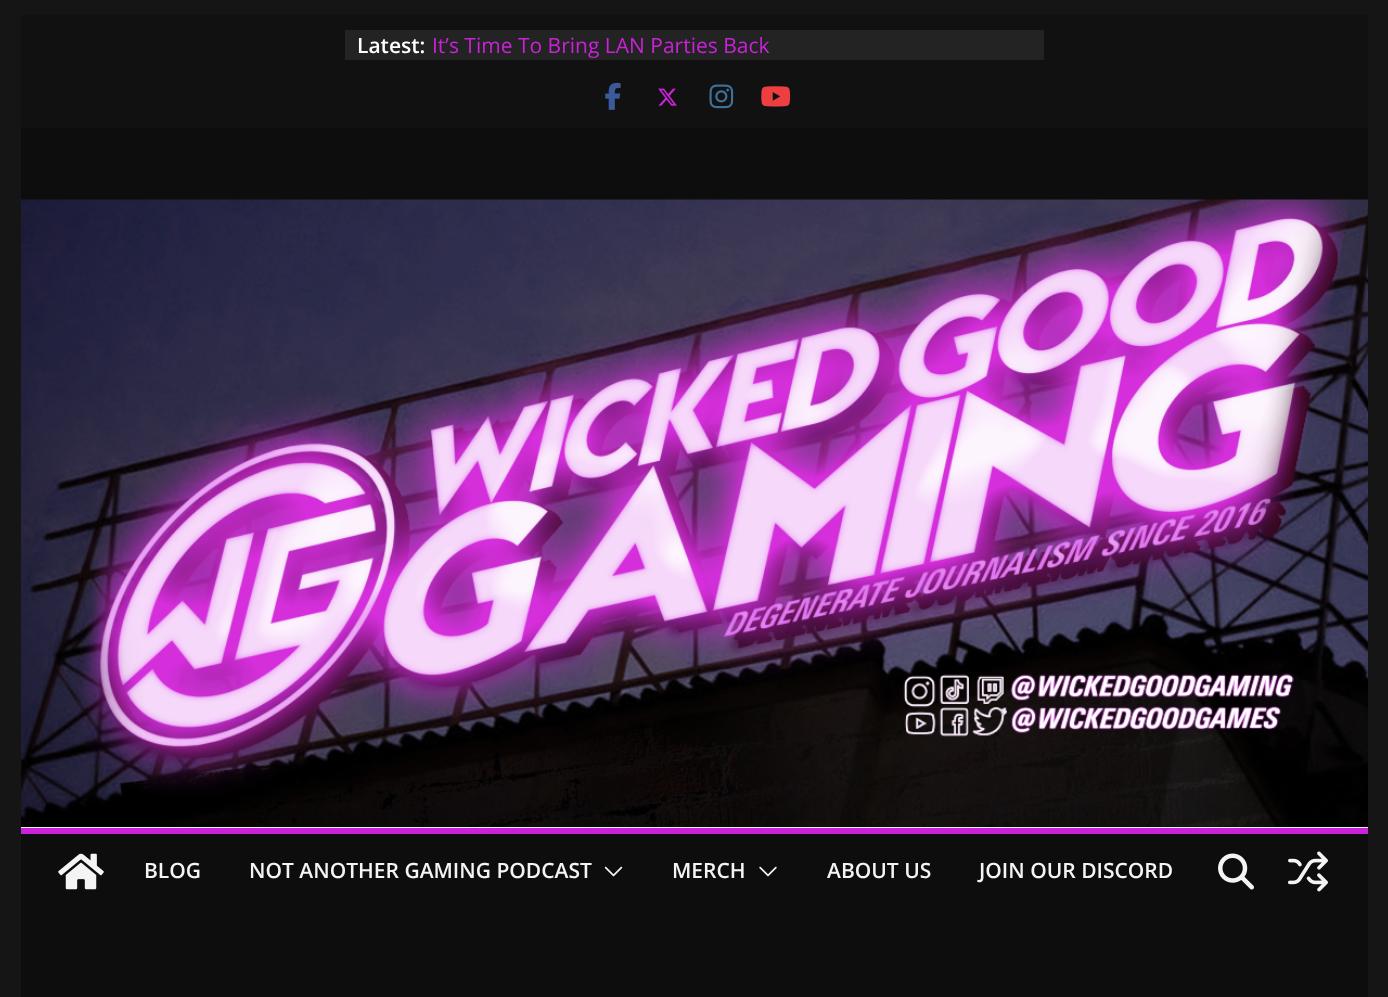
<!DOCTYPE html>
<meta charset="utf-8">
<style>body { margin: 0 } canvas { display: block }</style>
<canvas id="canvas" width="1388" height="997"></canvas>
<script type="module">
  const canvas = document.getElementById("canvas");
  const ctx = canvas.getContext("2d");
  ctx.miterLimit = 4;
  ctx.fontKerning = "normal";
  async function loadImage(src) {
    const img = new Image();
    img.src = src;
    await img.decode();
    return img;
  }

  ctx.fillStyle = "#151515";
  ctx.fillRect(0, 0, 1388, 997);
  ctx.fillStyle = "#0d0d0d";
  ctx.fillRect(21, 128, 1347, 869);
  ctx.fillStyle = "#111111";
  ctx.fillRect(21, 15, 1347, 113);
  ctx.fillStyle = "#232323";
  ctx.fillRect(345, 30, 699, 30);
  ctx.font = "600 21px Open Sans";
  ctx.fillStyle = "#ffffff";
  ctx.fillText("Latest:", 357, 53);
  ctx.font = "21px Open Sans";
  ctx.fillStyle = "#c922d8";
  ctx.fillText("It’s Time To Bring LAN Parties Back", 432, 53);
  ctx.drawImage(await loadImage("img1.png"), 605, 82, 16, 28);
  ctx.drawImage(await loadImage("img2.png"), 658, 88, 19, 18);
  ctx.drawImage(await loadImage("img3.png"), 709, 84, 25, 25);
  ctx.drawImage(await loadImage("img4.png"), 761, 86, 30, 21);
  ctx.drawImage(await loadImage("img5.png"), 21, 199, 1347, 628);
  ctx.fillStyle = "#ebebeb";
  ctx.fillRect(21, 827, 1347, 1);
  ctx.fillStyle = "#c922d8";
  ctx.fillRect(21, 828, 1347, 6);
  ctx.drawImage(await loadImage("img6.png"), 58, 853, 46, 37);
  ctx.font = "600 21px Open Sans";
  ctx.fillStyle = "#f4f4f5";
  ctx.fillText("BLOG", 144, 878);
  ctx.fillText("NOT ANOTHER GAMING PODCAST", 249, 878);
  ctx.drawImage(await loadImage("img7.png"), 604, 866, 19, 11);
  ctx.fillText("MERCH", 672, 878);
  ctx.drawImage(await loadImage("img8.png"), 759, 866, 18, 11);
  ctx.fillText("ABOUT US", 827, 878);
  ctx.fillText("JOIN OUR DISCORD", 979, 878);
  ctx.drawImage(await loadImage("img9.png"), 1218, 853, 36, 37);
  ctx.drawImage(await loadImage("img10.png"), 1287, 851, 41, 41);
</script>
